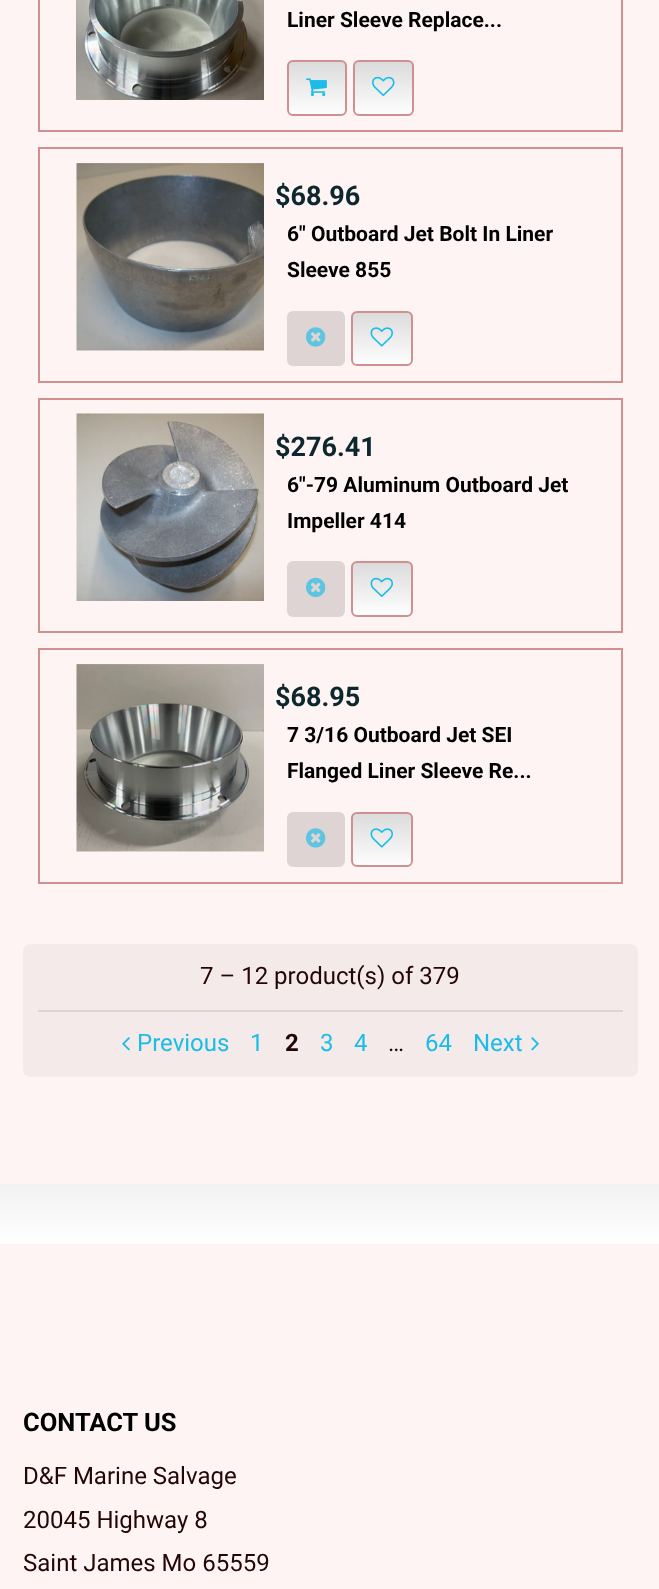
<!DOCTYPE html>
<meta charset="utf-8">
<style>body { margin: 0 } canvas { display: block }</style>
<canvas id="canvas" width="659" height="1589"></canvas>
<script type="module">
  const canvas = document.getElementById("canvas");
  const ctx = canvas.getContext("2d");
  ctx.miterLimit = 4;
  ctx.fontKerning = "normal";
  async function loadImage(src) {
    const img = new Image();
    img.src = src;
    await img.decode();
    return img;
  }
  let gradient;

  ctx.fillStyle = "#fff4f4";
  ctx.fillRect(0, 0, 659, 1589);
  ctx.strokeStyle = "#d28f8f";
  ctx.lineWidth = 2;
  ctx.strokeRect(39, -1, 583, 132);
  ctx.drawImage(await loadImage("img1.png"), 76, 0, 188, 100);
  ctx.font = "bold 21px Roboto";
  ctx.fillStyle = "#000000";
  ctx.fillText("Liner Sleeve Replace...", 287, 27);
  ctx.save();
  ctx.beginPath();
  ctx.roundRect(287, 60, 60, 56, 6);
  ctx.clip();
  gradient = ctx.createLinearGradient(317, 62, 317, 114);
  gradient.addColorStop(0, "#dbdbdb");
  gradient.addColorStop(1, "#fefefe");
  ctx.fillStyle = gradient;
  ctx.fillRect(287, 62, 60, 52);
  ctx.restore();
  ctx.beginPath();
  ctx.roundRect(288, 61, 58, 54, 5);
  ctx.stroke();
  ctx.drawImage(await loadImage("img2.png"), 306, 78, 21, 19);
  ctx.save();
  ctx.beginPath();
  ctx.roundRect(353, 60, 61, 56, 6);
  ctx.clip();
  gradient = ctx.createLinearGradient(383, 62, 383, 114);
  gradient.addColorStop(0, "#dbdbdb");
  gradient.addColorStop(1, "#fefefe");
  ctx.fillStyle = gradient;
  ctx.fillRect(353, 62, 61, 52);
  ctx.restore();
  ctx.beginPath();
  ctx.roundRect(354, 61, 59, 54, 5);
  ctx.stroke();
  ctx.drawImage(await loadImage("img3.png"), 372, 76, 23, 21);
  ctx.strokeRect(39, 148, 583, 234);
  ctx.drawImage(await loadImage("img4.png"), 76, 163, 188, 188);
  ctx.font = "bold 27px Roboto";
  ctx.fillStyle = "#0d272e";
  ctx.fillText("$68.96", 275, 205);
  ctx.font = "bold 21px Roboto";
  ctx.fillStyle = "#000000";
  ctx.fillText("6\" Outboard Jet Bolt In Liner", 287, 241);
  ctx.fillText("Sleeve 855", 287, 277);
  ctx.fillStyle = "#ded4d4";
  ctx.beginPath();
  ctx.roundRect(287, 311, 58, 55, 6);
  ctx.fill();
  ctx.drawImage(await loadImage("img5.png"), 306, 327, 20, 20);
  ctx.save();
  ctx.beginPath();
  ctx.roundRect(351, 311, 62, 55, 6);
  ctx.clip();
  gradient = ctx.createLinearGradient(382, 312, 382, 365);
  gradient.addColorStop(0, "#dbdbdb");
  gradient.addColorStop(1, "#fefefe");
  ctx.fillStyle = gradient;
  ctx.fillRect(351, 312, 62, 53);
  ctx.restore();
  ctx.beginPath();
  ctx.roundRect(352, 312, 60, 53, 5);
  ctx.stroke();
  ctx.drawImage(await loadImage("img6.png"), 370, 327, 23, 20);
  ctx.strokeRect(39, 399, 583, 233);
  ctx.drawImage(await loadImage("img7.png"), 76, 413, 188, 188);
  ctx.font = "bold 27px Roboto";
  ctx.fillStyle = "#0d272e";
  ctx.fillText("$276.41", 275, 456);
  ctx.font = "bold 21px Roboto";
  ctx.fillStyle = "#000000";
  ctx.fillText("6\"-79 Aluminum Outboard Jet", 287, 492);
  ctx.fillText("Impeller 414", 287, 528);
  ctx.fillStyle = "#ded4d4";
  ctx.beginPath();
  ctx.roundRect(287, 561, 58, 56, 6);
  ctx.fill();
  ctx.drawImage(await loadImage("img8.png"), 306, 577, 20, 21);
  ctx.save();
  ctx.beginPath();
  ctx.roundRect(351, 561, 62, 56, 6);
  ctx.clip();
  gradient = ctx.createLinearGradient(382, 563, 382, 615);
  gradient.addColorStop(0, "#dbdbdb");
  gradient.addColorStop(1, "#fefefe");
  ctx.fillStyle = gradient;
  ctx.fillRect(351, 563, 62, 52);
  ctx.restore();
  ctx.beginPath();
  ctx.roundRect(352, 562, 60, 54, 5);
  ctx.stroke();
  ctx.drawImage(await loadImage("img9.png"), 370, 577, 23, 21);
  ctx.strokeRect(39, 649, 583, 234);
  ctx.drawImage(await loadImage("img10.png"), 76, 664, 188, 188);
  ctx.font = "bold 27px Roboto";
  ctx.fillStyle = "#0d272e";
  ctx.fillText("$68.95", 275, 706);
  ctx.font = "bold 21px Roboto";
  ctx.fillStyle = "#000000";
  ctx.fillText("7 3/16 Outboard Jet SEI", 287, 742);
  ctx.fillText("Flanged Liner Sleeve Re...", 287, 778);
  ctx.fillStyle = "#ded4d4";
  ctx.beginPath();
  ctx.roundRect(287, 812, 58, 55, 6);
  ctx.fill();
  ctx.drawImage(await loadImage("img5.png"), 306, 828, 20, 20);
  ctx.save();
  ctx.beginPath();
  ctx.roundRect(351, 812, 62, 55, 6);
  ctx.clip();
  gradient = ctx.createLinearGradient(382, 813, 382, 866);
  gradient.addColorStop(0, "#dbdbdb");
  gradient.addColorStop(1, "#fefefe");
  ctx.fillStyle = gradient;
  ctx.fillRect(351, 813, 62, 53);
  ctx.restore();
  ctx.beginPath();
  ctx.roundRect(352, 813, 60, 53, 5);
  ctx.stroke();
  ctx.drawImage(await loadImage("img6.png"), 370, 828, 23, 20);
  ctx.fillStyle = "#f5eaea";
  ctx.beginPath();
  ctx.roundRect(23, 944, 615, 133, 8);
  ctx.fill();
  ctx.font = "24px Roboto";
  ctx.fillStyle = "#230606";
  ctx.fillText("7 – 12 product(s) of 379", 200, 984);
  ctx.fillStyle = "#ddd3d3";
  ctx.fillRect(38, 1010, 585, 2);
  ctx.drawImage(await loadImage("img11.png"), 122, 1037, 8, 14);
  ctx.fillStyle = "#19bde8";
  ctx.fillText("Previous", 137, 1051);
  ctx.fillText("1", 250, 1051);
  ctx.font = "bold 24px Roboto";
  ctx.fillStyle = "#230606";
  ctx.fillText("2", 285, 1051);
  ctx.font = "24px Roboto";
  ctx.fillStyle = "#19bde8";
  ctx.fillText("3", 320, 1051);
  ctx.fillText("4", 354, 1051);
  ctx.fillStyle = "#230606";
  ctx.fillText("…", 388, 1051);
  ctx.fillStyle = "#19bde8";
  ctx.fillText("64", 425, 1051);
  ctx.fillText("Next", 473, 1051);
  ctx.drawImage(await loadImage("img12.png"), 531, 1037, 8, 14);
  gradient = ctx.createLinearGradient(0, 1184, 0, 1244);
  gradient.addColorStop(0, "#f2f2f2");
  gradient.addColorStop(1, "#ffffff");
  ctx.fillStyle = gradient;
  ctx.fillRect(0, 1184, 659, 60);
  ctx.font = "bold 25.5px Roboto";
  ctx.fillStyle = "#000000";
  ctx.fillText("CONTACT US", 23, 1431);
  ctx.font = "24px Roboto";
  ctx.fillStyle = "#230606";
  ctx.fillText("D&F Marine Salvage", 23, 1484);
  ctx.fillText("20045 Highway 8", 23, 1528);
  ctx.fillText("Saint James Mo 65559", 23, 1571);
</script>
